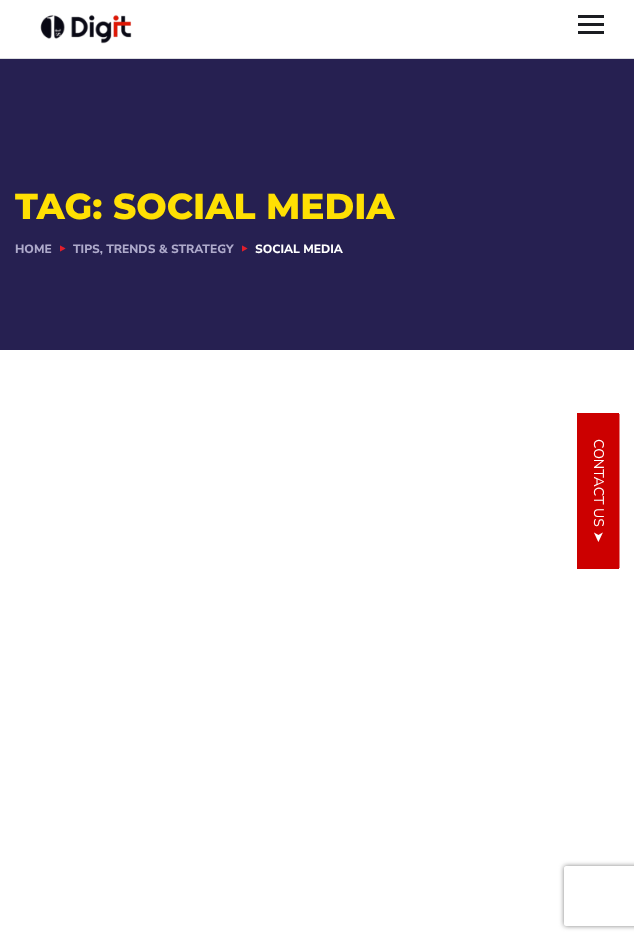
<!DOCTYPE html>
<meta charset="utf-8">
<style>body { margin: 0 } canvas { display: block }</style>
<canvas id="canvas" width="634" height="940"></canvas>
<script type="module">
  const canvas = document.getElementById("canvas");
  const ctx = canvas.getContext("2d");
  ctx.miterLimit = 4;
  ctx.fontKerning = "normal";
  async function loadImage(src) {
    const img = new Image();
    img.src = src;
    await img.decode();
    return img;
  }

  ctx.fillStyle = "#ffffff";
  ctx.fillRect(0, 0, 634, 940);
  ctx.fillStyle = "#dcdde1";
  ctx.fillRect(0, 58, 634, 1);
  ctx.drawImage(await loadImage("img1.png"), 40, 14, 92, 30);
  ctx.fillStyle = "#1b1d21";
  ctx.fillRect(578, 23, 26, 3);
  ctx.fillRect(578, 15, 26, 3);
  ctx.fillRect(578, 31, 26, 3);
  ctx.fillStyle = "#262051";
  ctx.fillRect(0, 59, 634, 291);
  ctx.font = "800 36px Montserrat";
  ctx.fillStyle = "#ffe003";
  ctx.fillText("TAG: SOCIAL MEDIA", 15, 219);
  ctx.font = "800 12px Nunito Sans";
  ctx.fillStyle = "#aeaacb";
  ctx.fillText("HOME", 15, 253);
  ctx.drawImage(await loadImage("img2.png"), 60, 245, 6, 7);
  ctx.fillText("TIPS, TRENDS & STRATEGY", 73, 253);
  ctx.drawImage(await loadImage("img2.png"), 242, 245, 6, 7);
  ctx.fillStyle = "#ffffff";
  ctx.fillText("SOCIAL MEDIA", 255, 253);
  ctx.fillStyle = "#cc0000";
  ctx.fillRect(577, 413, 42, 156);
  ctx.beginPath();
  ctx.moveTo(619, 414);
  ctx.lineTo(619, 568);
  ctx.lineTo(578, 568);
  ctx.lineTo(578, 414);
  ctx.closePath();
  ctx.strokeStyle = "#cc0000";
  ctx.stroke();
  ctx.font = "14px Nunito Sans";
  ctx.fillStyle = "#ffffff";
  ctx.save();
  ctx.translate(594, 439);
  ctx.rotate(90 * Math.PI / 180);
  ctx.fillText("CONTACT US", 0, 0);
  ctx.restore();
  ctx.font = "14px DejaVu Sans";
  ctx.save();
  ctx.translate(594, 531);
  ctx.rotate(90 * Math.PI / 180);
  ctx.fillText("➤", 0, 0);
  ctx.restore();
  ctx.save();
  ctx.beginPath();
  ctx.moveTo(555, 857);
  ctx.lineTo(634, 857);
  ctx.lineTo(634, 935);
  ctx.lineTo(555, 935);
  ctx.closePath();
  ctx.moveTo(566, 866);
  ctx.lineTo(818, 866);
  ctx.bezierCurveTo(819, 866, 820, 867, 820, 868);
  ctx.lineTo(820, 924);
  ctx.bezierCurveTo(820, 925, 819, 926, 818, 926);
  ctx.lineTo(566, 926);
  ctx.bezierCurveTo(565, 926, 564, 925, 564, 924);
  ctx.lineTo(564, 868);
  ctx.bezierCurveTo(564, 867, 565, 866, 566, 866);
  ctx.closePath();
  ctx.clip("evenodd");
  ctx.fillStyle = "#808080";
  ctx.filter = "blur(2.5px)";
  ctx.beginPath();
  ctx.roundRect(564, 866, 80, 60, 2);
  ctx.fill();
  ctx.filter = "none";
  ctx.restore();
</script>
